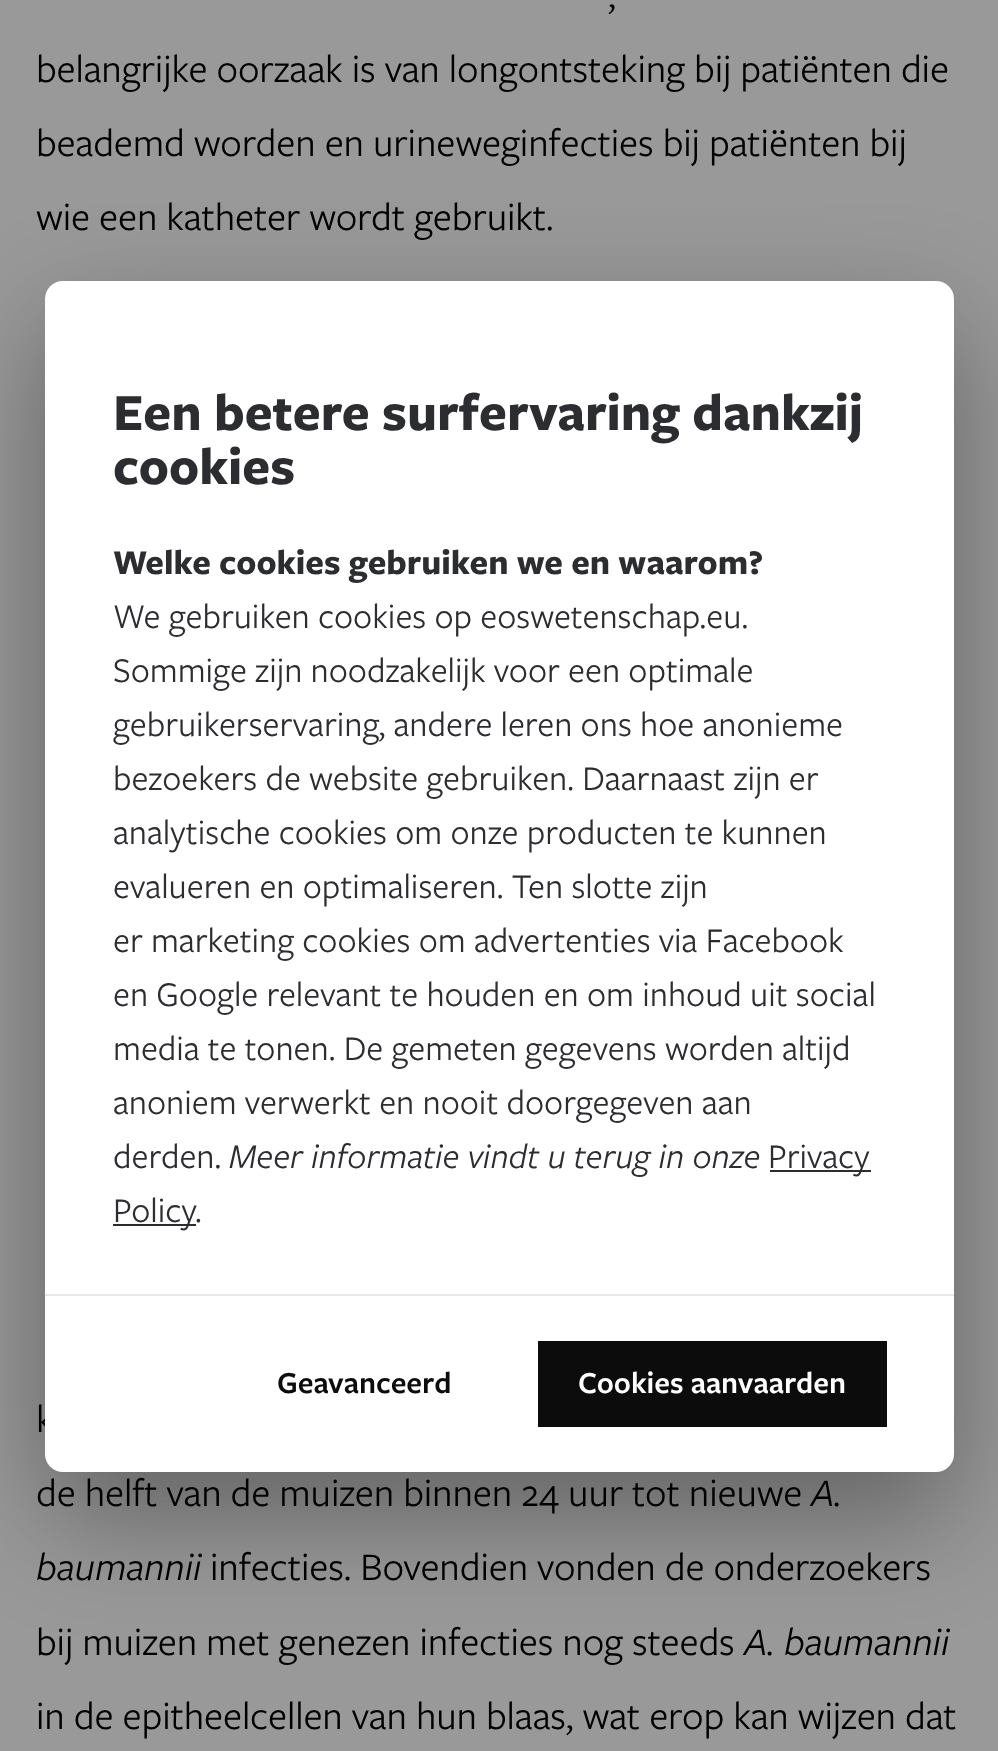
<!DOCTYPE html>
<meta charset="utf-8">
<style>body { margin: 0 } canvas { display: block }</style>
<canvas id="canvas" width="998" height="1751"></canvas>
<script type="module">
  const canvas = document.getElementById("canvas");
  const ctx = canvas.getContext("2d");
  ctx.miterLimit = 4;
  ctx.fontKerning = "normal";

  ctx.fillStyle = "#999999";
  ctx.fillRect(0, 0, 998, 1751);
  ctx.letterSpacing = "-0.12px";
  ctx.font = "40.5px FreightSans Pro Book";
  ctx.fillStyle = "#000000";
  ctx.fillText(",", 608, 8);
  ctx.fillText("belangrijke oorzaak is van longontsteking bij patiënten die", 36, 82);
  ctx.fillText("beademd worden en urineweginfecties bij patiënten bij", 36, 156);
  ctx.fillText("wie een katheter wordt gebruikt.", 36, 230);
  ctx.fillText("k", 36, 1432);
  ctx.fillText("de helft van de muizen binnen 24 uur tot nieuwe", 36, 1506);
  ctx.font = "italic 40.5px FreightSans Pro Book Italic";
  ctx.fillText("A.", 811, 1506);
  ctx.fillText("baumannii", 36, 1580);
  ctx.font = "40.5px FreightSans Pro Book";
  ctx.fillText("infecties. Bovendien vonden de onderzoekers", 210, 1580);
  ctx.fillText("bij muizen met genezen infecties nog steeds", 36, 1655);
  ctx.font = "italic 40.5px FreightSans Pro Book Italic";
  ctx.fillText("A. baumannii", 744, 1655);
  ctx.font = "40.5px FreightSans Pro Book";
  ctx.fillText("in de epitheelcellen van hun blaas, wat erop kan wijzen dat", 36, 1729);
  ctx.fillStyle = "rgba(0, 0, 0, 0.35)";
  ctx.filter = "blur(56px)";
  ctx.beginPath();
  ctx.roundRect(45, 326, 909, 1191, 18);
  ctx.fill();
  ctx.filter = "none";
  ctx.fillStyle = "#ffffff";
  ctx.beginPath();
  ctx.roundRect(45, 281, 909, 1191, 18);
  ctx.fill();
  ctx.letterSpacing = "0px";
  ctx.font = "bold 54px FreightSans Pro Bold";
  ctx.fillStyle = "#2c2d30";
  ctx.fillText("Een betere surfervaring dankzij", 113, 430);
  ctx.fillText("cookies", 113, 484);
  ctx.font = "bold 36px FreightSans Pro Bold";
  ctx.fillText("Welke cookies gebruiken we en waarom?", 113, 574);
  ctx.font = "36px FreightSans Pro Book";
  ctx.fillText("We gebruiken cookies op eoswetenschap.eu.", 113, 628);
  ctx.fillText("Sommige zijn noodzakelijk voor een optimale", 113, 682);
  ctx.fillText("gebruikerservaring, andere leren ons hoe anonieme", 113, 736);
  ctx.fillText("bezoekers de website gebruiken. Daarnaast zijn er", 113, 790);
  ctx.fillText("analytische cookies om onze producten te kunnen", 113, 844);
  ctx.fillText("evalueren en optimaliseren. Ten slotte zijn", 113, 898);
  ctx.fillText("er marketing cookies om advertenties via Facebook", 113, 952);
  ctx.fillText("en Google relevant te houden en om inhoud uit social", 113, 1006);
  ctx.fillText("media te tonen. De gemeten gegevens worden altijd", 113, 1060);
  ctx.fillText("anoniem verwerkt en nooit doorgegeven aan", 113, 1114);
  ctx.fillText("derden.", 113, 1168);
  ctx.font = "italic 36px FreightSans Pro Book Italic";
  ctx.fillText("Meer informatie vindt u terug in onze", 229, 1168);
  ctx.fillRect(770, 1170, 101, 2);
  ctx.font = "36px FreightSans Pro Book";
  ctx.fillText("Privacy", 768, 1168);
  ctx.fillRect(113, 1224, 83, 2);
  ctx.fillText("Policy", 113, 1222);
  ctx.fillText(".", 195, 1222);
  ctx.fillStyle = "#e8e8e8";
  ctx.fillRect(45, 1294, 909, 2);
  ctx.font = "600 31.5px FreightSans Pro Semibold";
  ctx.fillStyle = "#0c0c0c";
  ctx.fillText("Geavanceerd", 277, 1393);
  ctx.fillRect(538, 1341, 349, 86);
  ctx.fillStyle = "#ffffff";
  ctx.fillText("Cookies aanvaarden", 578, 1393);
</script>
